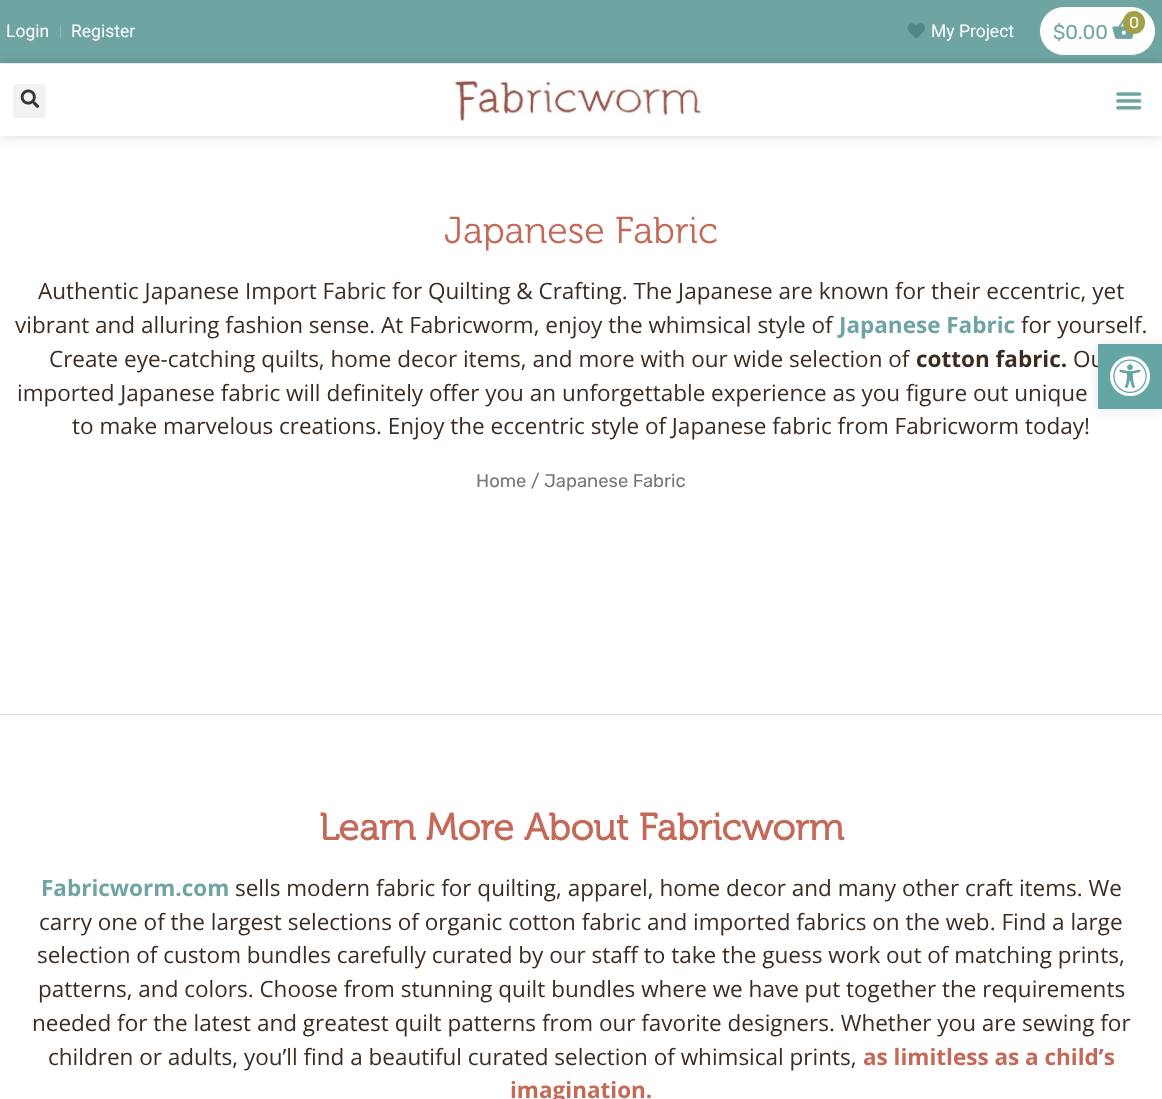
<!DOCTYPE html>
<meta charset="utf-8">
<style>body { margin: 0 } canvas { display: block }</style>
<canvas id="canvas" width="1162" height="1099"></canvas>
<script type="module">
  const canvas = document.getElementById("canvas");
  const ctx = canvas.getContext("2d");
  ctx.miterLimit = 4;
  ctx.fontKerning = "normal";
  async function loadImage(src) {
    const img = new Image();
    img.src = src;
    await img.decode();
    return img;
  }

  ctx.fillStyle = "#ffffff";
  ctx.fillRect(0, 0, 1162, 1099);
  ctx.fillStyle = "#6ea5a3";
  ctx.fillRect(0, 0, 1162, 63);
  ctx.font = "17.5px Roboto";
  ctx.fillStyle = "#ffffff";
  ctx.fillText("Login", 6, 37);
  ctx.fillStyle = "#8eb9b7";
  ctx.fillRect(60, 25, 1, 13);
  ctx.fillStyle = "#ffffff";
  ctx.fillText("Register", 71, 37);
  ctx.drawImage(await loadImage("img1.png"), 907, 23, 18, 16);
  ctx.fillText("My Project", 931, 37);
  ctx.beginPath();
  ctx.roundRect(1039.5, 6.5, 116, 49, 24.5);
  ctx.fill();
  ctx.strokeStyle = "#6ea5a3";
  ctx.stroke();
  ctx.font = "20px Rubik";
  ctx.fillStyle = "#6ea5a3";
  ctx.fillText("$0.00", 1053, 39);
  ctx.drawImage(await loadImage("img2.png"), 1112, 19, 22, 20);
  ctx.fillStyle = "#a2a145";
  ctx.beginPath();
  ctx.roundRect(1123, 11, 22, 23, 11);
  ctx.fill();
  ctx.font = "16px Rubik";
  ctx.fillStyle = "#ffffff";
  ctx.fillText("0", 1129, 28);
  ctx.save();
  ctx.beginPath();
  ctx.moveTo(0, 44);
  ctx.lineTo(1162, 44);
  ctx.lineTo(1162, 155);
  ctx.lineTo(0, 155);
  ctx.closePath();
  ctx.moveTo(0, 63);
  ctx.lineTo(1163, 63);
  ctx.lineTo(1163, 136);
  ctx.lineTo(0, 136);
  ctx.closePath();
  ctx.clip("evenodd");
  ctx.fillStyle = "rgba(0, 0, 0, 0.15)";
  ctx.filter = "blur(6px)";
  ctx.beginPath();
  ctx.rect(0, 63, 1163, 73);
  ctx.fill();
  ctx.filter = "none";
  ctx.restore();
  ctx.fillStyle = "#ebebeb";
  ctx.fillRect(0, 63, 1162, 1);
  ctx.fillStyle = "#f2f2f2";
  ctx.beginPath();
  ctx.roundRect(13, 84, 33, 34, 4);
  ctx.fill();
  ctx.drawImage(await loadImage("img3.png"), 20, 89, 20, 19);
  ctx.drawImage(await loadImage("img4.png"), 453, 79, 249, 43);
  ctx.drawImage(await loadImage("img5.png"), 1116, 92, 26, 18);
  ctx.font = "37.5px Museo";
  ctx.fillStyle = "#c46857";
  ctx.fillText("Japanese Fabric", 444, 243);
  ctx.font = "22.5px Open Sans";
  ctx.fillStyle = "#3d2c21";
  ctx.fillText("Authentic Japanese Import Fabric for Quilting & Crafting. The Japanese are known for their eccentric, yet", 38, 299);
  ctx.fillText("vibrant and alluring fashion sense. At Fabricworm, enjoy the whimsical style of", 15, 333);
  ctx.font = "bold 22.5px Open Sans";
  ctx.fillStyle = "#6ea5a3";
  ctx.fillText("Japanese Fabric", 839, 333);
  ctx.font = "22.5px Open Sans";
  ctx.fillStyle = "#3d2c21";
  ctx.fillText("for yourself.", 1021, 333);
  ctx.fillText("Create eye-catching quilts, home decor items, and more with our wide selection of", 49, 367);
  ctx.font = "bold 22.5px Open Sans";
  ctx.fillText("cotton fabric.", 916, 367);
  ctx.font = "22.5px Open Sans";
  ctx.fillText("Ou", 1073, 367);
  ctx.fillText("imported Japanese fabric will definitely offer you an unforgettable experience as you figure out unique", 17, 401);
  ctx.fillText("to make marvelous creations. Enjoy the eccentric style of Japanese fabric from Fabricworm today!", 72, 434);
  ctx.font = "18.4px Rubik";
  ctx.fillStyle = "#767676";
  ctx.fillText("Home / Japanese Fabric", 476, 487);
  ctx.fillStyle = "#dedede";
  ctx.fillRect(0, 714, 1162, 1);
  ctx.font = "bold 37.5px Museo";
  ctx.fillStyle = "#c46857";
  ctx.fillText("Learn More About Fabricworm", 319, 840);
  ctx.font = "bold 22.5px Open Sans";
  ctx.fillStyle = "#6ea5a3";
  ctx.fillText("Fabricworm.com", 41, 896);
  ctx.font = "22.5px Open Sans";
  ctx.fillStyle = "#3d2c21";
  ctx.fillText("sells modern fabric for quilting, apparel, home decor and many other craft items. We", 235, 896);
  ctx.fillText("carry one of the largest selections of organic cotton fabric and imported fabrics on the web. Find a large", 39, 930);
  ctx.fillText("selection of custom bundles carefully curated by our staff to take the guess work out of matching prints,", 37, 963);
  ctx.fillText("patterns, and colors. Choose from stunning quilt bundles where we have put together the requirements", 38, 997);
  ctx.fillText("needed for the latest and greatest quilt patterns from our favorite designers. Whether you are sewing for", 32, 1031);
  ctx.fillText("children or adults, you’ll find a beautiful curated selection of whimsical prints,", 48, 1065);
  ctx.font = "bold 22.5px Open Sans";
  ctx.fillStyle = "#c46857";
  ctx.fillText("as limitless as a child’s", 863, 1065);
  ctx.fillText("imagination.", 510, 1098);
  ctx.fillStyle = "rgba(0, 0, 0, 0.1)";
  ctx.filter = "blur(6px)";
  ctx.beginPath();
  ctx.rect(1098, 344, 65, 65);
  ctx.fill();
  ctx.filter = "none";
  ctx.fillStyle = "#65a5a5";
  ctx.fillRect(1098, 344, 64, 65);
  ctx.drawImage(await loadImage("img6.png"), 1110, 356, 40, 40);
</script>
